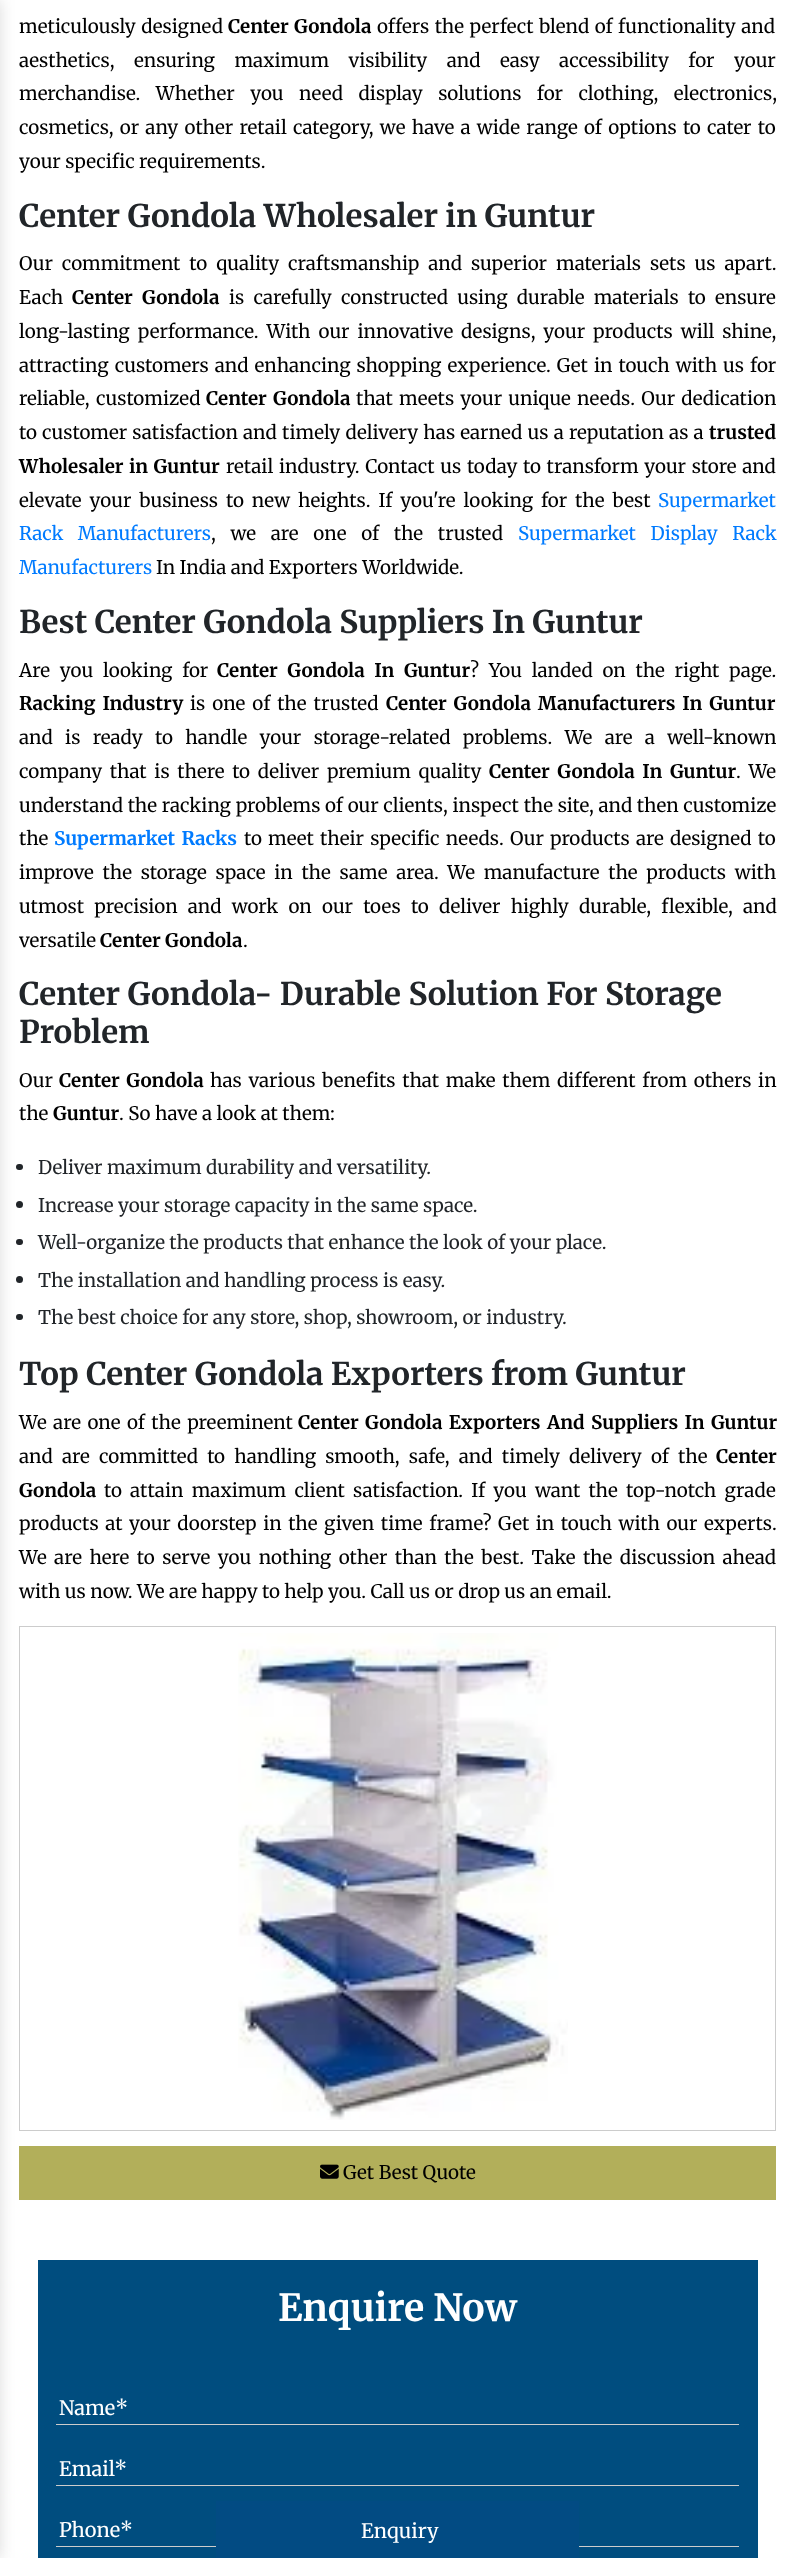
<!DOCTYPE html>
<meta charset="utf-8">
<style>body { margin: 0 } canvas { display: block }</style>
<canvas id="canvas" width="795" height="2558"></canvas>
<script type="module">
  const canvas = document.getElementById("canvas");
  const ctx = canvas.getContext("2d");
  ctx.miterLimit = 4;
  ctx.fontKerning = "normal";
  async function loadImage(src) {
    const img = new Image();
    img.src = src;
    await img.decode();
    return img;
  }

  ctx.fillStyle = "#ffffff";
  ctx.fillRect(0, 0, 795, 2558);
  ctx.fillStyle = "#212529";
  ctx.beginPath();
  ctx.roundRect(16, 1164, 7, 6, 3);
  ctx.fill();
  ctx.beginPath();
  ctx.arc(19.5, 1204.5, 3.5, 0, Math.PI * 2);
  ctx.fill();
  ctx.beginPath();
  ctx.roundRect(16, 1239, 7, 6, 3);
  ctx.fill();
  ctx.beginPath();
  ctx.arc(19.5, 1279.5, 3.5, 0, Math.PI * 2);
  ctx.fill();
  ctx.beginPath();
  ctx.roundRect(16, 1314, 7, 6, 3);
  ctx.fill();
  ctx.strokeStyle = "#cccccc";
  ctx.strokeRect(19.5, 1626.5, 756, 504);
  ctx.fillStyle = "#b2af5a";
  ctx.fillRect(19, 2146, 757, 54);
  ctx.fillStyle = "rgba(0, 0, 0, 0.14)";
  ctx.filter = "blur(7.5px)";
  ctx.beginPath();
  ctx.rect(-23, 0, 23, 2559);
  ctx.fill();
  ctx.filter = "none";
  ctx.wordSpacing = "1px";
  ctx.font = "18.75px Merriweather";
  ctx.fillStyle = "#000000";
  ctx.fillText("meticulously designed", 19, 33);
  ctx.font = "bold 18.75px Merriweather";
  ctx.fillText("Center Gondola", 228, 33);
  ctx.font = "18.75px Merriweather";
  ctx.fillText("offers the perfect blend of functionality and", 377, 33);
  ctx.wordSpacing = "15px";
  ctx.fillText("aesthetics, ensuring maximum visibility and easy accessibility for your", 19, 67);
  ctx.wordSpacing = "11px";
  ctx.fillText("merchandise. Whether you need display solutions for clothing, electronics,", 19, 100);
  ctx.wordSpacing = "1.8px";
  ctx.fillText("cosmetics, or any other retail category, we have a wide range of options to cater to", 19, 134);
  ctx.wordSpacing = "0px";
  ctx.fillText("your specific requirements.", 19, 168);
  ctx.font = "bold 31.25px Merriweather";
  ctx.fillStyle = "#212529";
  ctx.fillText("Center Gondola Wholesaler in Guntur", 19, 227);
  ctx.wordSpacing = "4.5px";
  ctx.font = "18.75px Merriweather";
  ctx.fillStyle = "#000000";
  ctx.fillText("Our commitment to quality craftsmanship and superior materials sets us apart.", 19, 270);
  ctx.wordSpacing = "0px";
  ctx.fillText("Each", 19, 304);
  ctx.wordSpacing = "5px";
  ctx.font = "bold 18.75px Merriweather";
  ctx.fillText("Center Gondola", 72, 304);
  ctx.wordSpacing = "4.75px";
  ctx.font = "18.75px Merriweather";
  ctx.fillText("is carefully constructed using durable materials to ensure", 229, 304);
  ctx.wordSpacing = "3.5px";
  ctx.fillText("long-lasting performance. With our innovative designs, your products will shine,", 19, 338);
  ctx.wordSpacing = "1.6px";
  ctx.fillText("attracting customers and enhancing shopping experience. Get in touch with us for", 19, 372);
  ctx.wordSpacing = "2px";
  ctx.fillText("reliable, customized", 19, 405);
  ctx.font = "bold 18.75px Merriweather";
  ctx.fillText("Center Gondola", 206, 405);
  ctx.wordSpacing = "1.75px";
  ctx.font = "18.75px Merriweather";
  ctx.fillText("that meets your unique needs. Our dedication", 356, 405);
  ctx.wordSpacing = "0.75px";
  ctx.fillText("to customer satisfaction and timely delivery has earned us a reputation as a", 19, 439);
  ctx.wordSpacing = "0px";
  ctx.font = "bold 18.75px Merriweather";
  ctx.fillText("trusted", 709, 439);
  ctx.wordSpacing = "1px";
  ctx.fillText("Wholesaler in Guntur", 19, 473);
  ctx.wordSpacing = "1.25px";
  ctx.font = "18.75px Merriweather";
  ctx.fillText("retail industry. Contact us today to transform your store and", 226, 473);
  ctx.wordSpacing = "3.5px";
  ctx.fillText("elevate your business to new heights. If you're looking for the best", 19, 507);
  ctx.wordSpacing = "0px";
  ctx.fillStyle = "#007bff";
  ctx.fillText("Supermarket", 658, 507);
  ctx.wordSpacing = "10px";
  ctx.fillText("Rack Manufacturers", 19, 540);
  ctx.wordSpacing = "10.25px";
  ctx.fillStyle = "#000000";
  ctx.fillText(", we are one of the trusted", 211, 540);
  ctx.fillStyle = "#007bff";
  ctx.fillText("Supermarket Display Rack", 518, 540);
  ctx.wordSpacing = "0px";
  ctx.fillText("Manufacturers", 19, 574);
  ctx.fillStyle = "#000000";
  ctx.fillText("In India and Exporters Worldwide.", 156, 574);
  ctx.font = "bold 31.25px Merriweather";
  ctx.fillStyle = "#212529";
  ctx.fillText("Best Center Gondola Suppliers In Guntur", 19, 633);
  ctx.wordSpacing = "5.25px";
  ctx.font = "18.75px Merriweather";
  ctx.fillStyle = "#000000";
  ctx.fillText("Are you looking for", 19, 677);
  ctx.font = "bold 18.75px Merriweather";
  ctx.fillText("Center Gondola In Guntur", 217, 677);
  ctx.font = "18.75px Merriweather";
  ctx.fillText("? You landed on the right page.", 470, 677);
  ctx.wordSpacing = "2.5px";
  ctx.font = "bold 18.75px Merriweather";
  ctx.fillText("Racking Industry", 19, 710);
  ctx.font = "18.75px Merriweather";
  ctx.fillText("is one of the trusted", 190, 710);
  ctx.font = "bold 18.75px Merriweather";
  ctx.fillText("Center Gondola Manufacturers In Guntur", 386, 710);
  ctx.wordSpacing = "7.9px";
  ctx.font = "18.75px Merriweather";
  ctx.fillText("and is ready to handle your storage-related problems. We are a well-known", 19, 744);
  ctx.wordSpacing = "3.25px";
  ctx.fillText("company that is there to deliver premium quality", 19, 778);
  ctx.font = "bold 18.75px Merriweather";
  ctx.fillText("Center Gondola In Guntur", 489, 778);
  ctx.font = "18.75px Merriweather";
  ctx.fillText(". We", 736, 778);
  ctx.wordSpacing = "0.25px";
  ctx.fillText("understand the racking problems of our clients, inspect the site, and then customize", 19, 812);
  ctx.wordSpacing = "0px";
  ctx.fillText("the", 19, 845);
  ctx.wordSpacing = "2px";
  ctx.font = "bold 18.75px Merriweather";
  ctx.fillStyle = "#007bff";
  ctx.fillText("Supermarket Racks", 54, 845);
  ctx.wordSpacing = "1.75px";
  ctx.font = "18.75px Merriweather";
  ctx.fillStyle = "#000000";
  ctx.fillText("to meet their specific needs. Our products are designed to", 244, 845);
  ctx.wordSpacing = "4.25px";
  ctx.fillText("improve the storage space in the same area. We manufacture the products with", 19, 879);
  ctx.wordSpacing = "5.75px";
  ctx.fillText("utmost precision and work on our toes to deliver highly durable, flexible, and", 19, 913);
  ctx.wordSpacing = "0px";
  ctx.fillText("versatile", 19, 947);
  ctx.font = "bold 18.75px Merriweather";
  ctx.fillText("Center Gondola", 100, 947);
  ctx.font = "18.75px Merriweather";
  ctx.fillText(".", 243, 947);
  ctx.font = "bold 31.25px Merriweather";
  ctx.fillStyle = "#212529";
  ctx.fillText("Center Gondola- Durable Solution For Storage", 19, 1005);
  ctx.fillText("Problem", 19, 1043);
  ctx.font = "18.75px Merriweather";
  ctx.fillStyle = "#000000";
  ctx.fillText("Our", 19, 1087);
  ctx.wordSpacing = "2.25px";
  ctx.font = "bold 18.75px Merriweather";
  ctx.fillText("Center Gondola", 59, 1087);
  ctx.font = "18.75px Merriweather";
  ctx.fillText("has various benefits that make them different from others in", 210, 1087);
  ctx.wordSpacing = "0px";
  ctx.fillText("the", 19, 1120);
  ctx.font = "bold 18.75px Merriweather";
  ctx.fillText("Guntur", 53, 1120);
  ctx.font = "18.75px Merriweather";
  ctx.fillText(". So have a look at them:", 119, 1120);
  ctx.fillStyle = "#212529";
  ctx.fillText("Deliver maximum durability and versatility.", 38, 1174);
  ctx.fillText("Increase your storage capacity in the same space.", 38, 1212);
  ctx.fillText("Well-organize the products that enhance the look of your place.", 38, 1249);
  ctx.fillText("The installation and handling process is easy.", 38, 1287);
  ctx.fillText("The best choice for any store, shop, showroom, or industry.", 38, 1324);
  ctx.font = "bold 31.25px Merriweather";
  ctx.fillText("Top Center Gondola Exporters from Guntur", 19, 1385);
  ctx.wordSpacing = "2px";
  ctx.font = "18.75px Merriweather";
  ctx.fillStyle = "#000000";
  ctx.fillText("We are one of the preeminent", 19, 1429);
  ctx.font = "bold 18.75px Merriweather";
  ctx.fillText("Center Gondola Exporters And Suppliers In Guntur", 298, 1429);
  ctx.wordSpacing = "4.75px";
  ctx.font = "18.75px Merriweather";
  ctx.fillText("and are committed to handling smooth, safe, and timely delivery of the", 19, 1463);
  ctx.wordSpacing = "0px";
  ctx.font = "bold 18.75px Merriweather";
  ctx.fillText("Center", 716, 1463);
  ctx.fillText("Gondola", 19, 1497);
  ctx.wordSpacing = "3.75px";
  ctx.font = "18.75px Merriweather";
  ctx.fillText("to attain maximum client satisfaction. If you want the top-notch grade", 104, 1497);
  ctx.wordSpacing = "2.1px";
  ctx.fillText("products at your doorstep in the given time frame? Get in touch with our experts.", 19, 1530);
  ctx.wordSpacing = "3px";
  ctx.fillText("We are here to serve you nothing other than the best. Take the discussion ahead", 19, 1564);
  ctx.wordSpacing = "0px";
  ctx.fillText("with us now. We are happy to help you. Call us or drop us an email.", 19, 1598);
  ctx.drawImage(await loadImage("img1.png"), 238, 1633, 330, 487);
  ctx.drawImage(await loadImage("img2.png"), 320, 2164, 19, 15);
  ctx.fillText("Get Best Quote", 343, 2179);
  ctx.fillStyle = "#004d7f";
  ctx.fillRect(38, 2260, 720, 298);
  ctx.font = "bold 37.5px Merriweather";
  ctx.fillStyle = "#ffffff";
  ctx.fillText("Enquire Now", 278, 2321);
  ctx.fillStyle = "#cccccc";
  ctx.fillRect(56, 2424, 683, 1);
  ctx.font = "20px Merriweather";
  ctx.fillStyle = "#ffffff";
  ctx.fillText("Name*", 59, 2415);
  ctx.fillStyle = "#cccccc";
  ctx.fillRect(56, 2485, 683, 1);
  ctx.fillStyle = "#ffffff";
  ctx.fillText("Email*", 59, 2476);
  ctx.fillStyle = "#cccccc";
  ctx.fillRect(56, 2546, 683, 1);
  ctx.fillStyle = "#ffffff";
  ctx.fillText("Phone*", 59, 2537);
  ctx.fillStyle = "#024b83";
  ctx.fillRect(216, 2501, 363, 57);
  ctx.fillStyle = "#ffffff";
  ctx.fillText("Enquiry", 361, 2538);
</script>
